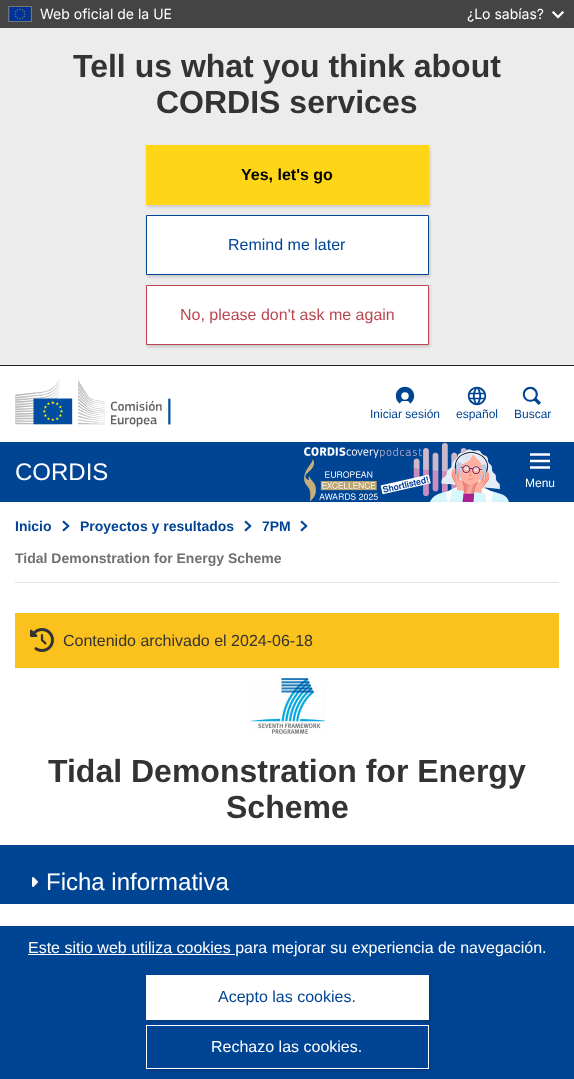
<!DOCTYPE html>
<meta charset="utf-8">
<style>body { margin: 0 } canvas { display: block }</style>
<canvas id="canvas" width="574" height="1079"></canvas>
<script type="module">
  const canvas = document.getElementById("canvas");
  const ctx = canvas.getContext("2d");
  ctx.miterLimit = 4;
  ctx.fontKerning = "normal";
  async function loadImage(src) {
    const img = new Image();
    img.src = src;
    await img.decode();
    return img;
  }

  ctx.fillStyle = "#ffffff";
  ctx.fillRect(0, 0, 574, 1079);
  ctx.fillStyle = "#444444";
  ctx.fillRect(0, 0, 574, 28);
  ctx.strokeStyle = "#737373";
  ctx.strokeRect(8.5, 6.5, 23, 15);
  ctx.drawImage(await loadImage("img1.png"), 10, 7, 21, 14);
  ctx.font = "14px Inter";
  ctx.fillStyle = "#ffffff";
  ctx.fillText("Web oficial de la UE", 40, 19);
  ctx.fillText("¿Lo sabías?", 467, 19);
  ctx.drawImage(await loadImage("img2.png"), 552, 11, 12, 8);
  ctx.fillStyle = "#ececec";
  ctx.fillRect(0, 28, 574, 337);
  ctx.fillStyle = "#1f1f1f";
  ctx.fillRect(0, 365, 574, 1);
  ctx.font = "bold 32px Liberation Sans";
  ctx.fillStyle = "#333333";
  ctx.fillText("Tell us what you think about", 73, 77);
  ctx.fillText("CORDIS services", 156, 113);
  ctx.fillStyle = "rgba(0, 0, 0, 0.15)";
  ctx.filter = "blur(1.5px)";
  ctx.beginPath();
  ctx.rect(147, 147, 283, 60);
  ctx.fill();
  ctx.filter = "none";
  ctx.fillStyle = "#ffd617";
  ctx.fillRect(146, 145, 283, 60);
  ctx.font = "bold 16px Liberation Sans";
  ctx.fillStyle = "#000000";
  ctx.fillText("Yes, let's go", 241, 180);
  ctx.fillStyle = "rgba(0, 0, 0, 0.15)";
  ctx.filter = "blur(1.5px)";
  ctx.beginPath();
  ctx.rect(147, 217, 283, 60);
  ctx.fill();
  ctx.filter = "none";
  ctx.fillStyle = "#ffffff";
  ctx.beginPath();
  ctx.rect(146.5, 215.5, 282, 59);
  ctx.fill();
  ctx.strokeStyle = "#004494";
  ctx.stroke();
  ctx.font = "16px Liberation Sans";
  ctx.fillStyle = "#004494";
  ctx.fillText("Remind me later", 228, 250);
  ctx.fillStyle = "rgba(0, 0, 0, 0.15)";
  ctx.filter = "blur(1.5px)";
  ctx.beginPath();
  ctx.rect(147, 287, 283, 60);
  ctx.fill();
  ctx.filter = "none";
  ctx.fillStyle = "#ffffff";
  ctx.beginPath();
  ctx.rect(146.5, 285.5, 282, 59);
  ctx.fill();
  ctx.strokeStyle = "#bb464f";
  ctx.stroke();
  ctx.fillStyle = "#bb464f";
  ctx.fillText("No, please don't ask me again", 180, 320);
  ctx.drawImage(await loadImage("img3.png"), 15, 380, 156, 47);
  ctx.drawImage(await loadImage("img4.png"), 395, 386, 20, 18);
  ctx.font = "12px Liberation Sans";
  ctx.fillStyle = "#004494";
  ctx.fillText("Iniciar sesión", 370, 418);
  ctx.drawImage(await loadImage("img5.png"), 467, 386, 20, 20);
  ctx.fillText("español", 456, 418);
  ctx.drawImage(await loadImage("img6.png"), 522, 386, 19, 19);
  ctx.fillText("Buscar", 514, 418);
  ctx.fillRect(0, 442, 574, 60);
  ctx.font = "24px Liberation Sans";
  ctx.fillStyle = "#ffffff";
  ctx.fillText("CORDIS", 15, 480);
  ctx.drawImage(await loadImage("img7.png"), 304, 443, 205, 59);
  ctx.drawImage(await loadImage("img8.png"), 530, 453, 20, 16);
  ctx.font = "12px Liberation Sans";
  ctx.fillText("Menu", 525, 487);
  ctx.fillStyle = "#e3e3e3";
  ctx.fillRect(15, 582, 544, 1);
  ctx.font = "bold 14px Liberation Sans";
  ctx.fillStyle = "#004494";
  ctx.fillText("Inicio", 15, 531);
  ctx.drawImage(await loadImage("img9.png"), 62, 520, 8, 12);
  ctx.fillText("Proyectos y resultados", 80, 531);
  ctx.drawImage(await loadImage("img9.png"), 244, 520, 8, 12);
  ctx.fillText("7PM", 262, 531);
  ctx.drawImage(await loadImage("img9.png"), 300, 520, 8, 12);
  ctx.fillStyle = "#707070";
  ctx.fillText("Tidal Demonstration for Energy Scheme", 15, 563);
  ctx.fillStyle = "#fbc11d";
  ctx.fillRect(15, 613, 544, 55);
  ctx.drawImage(await loadImage("img10.png"), 30, 628, 24, 24);
  ctx.font = "16px Liberation Sans";
  ctx.fillStyle = "#333333";
  ctx.fillText("Contenido archivado el 2024-06-18", 63, 646);
  ctx.drawImage(await loadImage("img11.png"), 250, 678, 75, 57);
  ctx.font = "bold 32px Liberation Sans";
  ctx.fillText("Tidal Demonstration for Energy", 48, 782);
  ctx.fillText("Scheme", 226, 818);
  ctx.fillStyle = "#004494";
  ctx.fillRect(0, 845, 574, 59);
  ctx.drawImage(await loadImage("img12.png"), 32, 877, 6, 10);
  ctx.font = "24px Liberation Sans";
  ctx.fillStyle = "#ffffff";
  ctx.fillText("Ficha informativa", 46, 890);
  ctx.fillStyle = "#004494";
  ctx.fillRect(0, 926, 574, 153);
  ctx.fillStyle = "#ffffff";
  ctx.fillRect(28, 954, 207, 1);
  ctx.font = "16px Liberation Sans";
  ctx.fillText("Este sitio web utiliza cookies para mejorar su experiencia de navegación.", 28, 953);
  ctx.fillStyle = "rgba(0, 0, 0, 0.15)";
  ctx.filter = "blur(1.5px)";
  ctx.beginPath();
  ctx.rect(147, 977, 283, 45);
  ctx.fill();
  ctx.filter = "none";
  ctx.fillStyle = "#ffffff";
  ctx.fillRect(146, 975, 283, 45);
  ctx.fillStyle = "#004494";
  ctx.fillText("Acepto las cookies.", 218, 1002);
  ctx.save();
  ctx.beginPath();
  ctx.moveTo(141, 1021);
  ctx.lineTo(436, 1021);
  ctx.lineTo(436, 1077);
  ctx.lineTo(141, 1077);
  ctx.closePath();
  ctx.moveTo(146, 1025);
  ctx.lineTo(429, 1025);
  ctx.lineTo(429, 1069);
  ctx.lineTo(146, 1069);
  ctx.closePath();
  ctx.clip("evenodd");
  ctx.fillStyle = "rgba(0, 0, 0, 0.15)";
  ctx.filter = "blur(1.5px)";
  ctx.beginPath();
  ctx.rect(147, 1027, 283, 44);
  ctx.fill();
  ctx.filter = "none";
  ctx.restore();
  ctx.strokeStyle = "#ffffff";
  ctx.strokeRect(146.5, 1025.5, 282, 43);
  ctx.fillStyle = "#ffffff";
  ctx.fillText("Rechazo las cookies.", 211, 1052);
</script>
